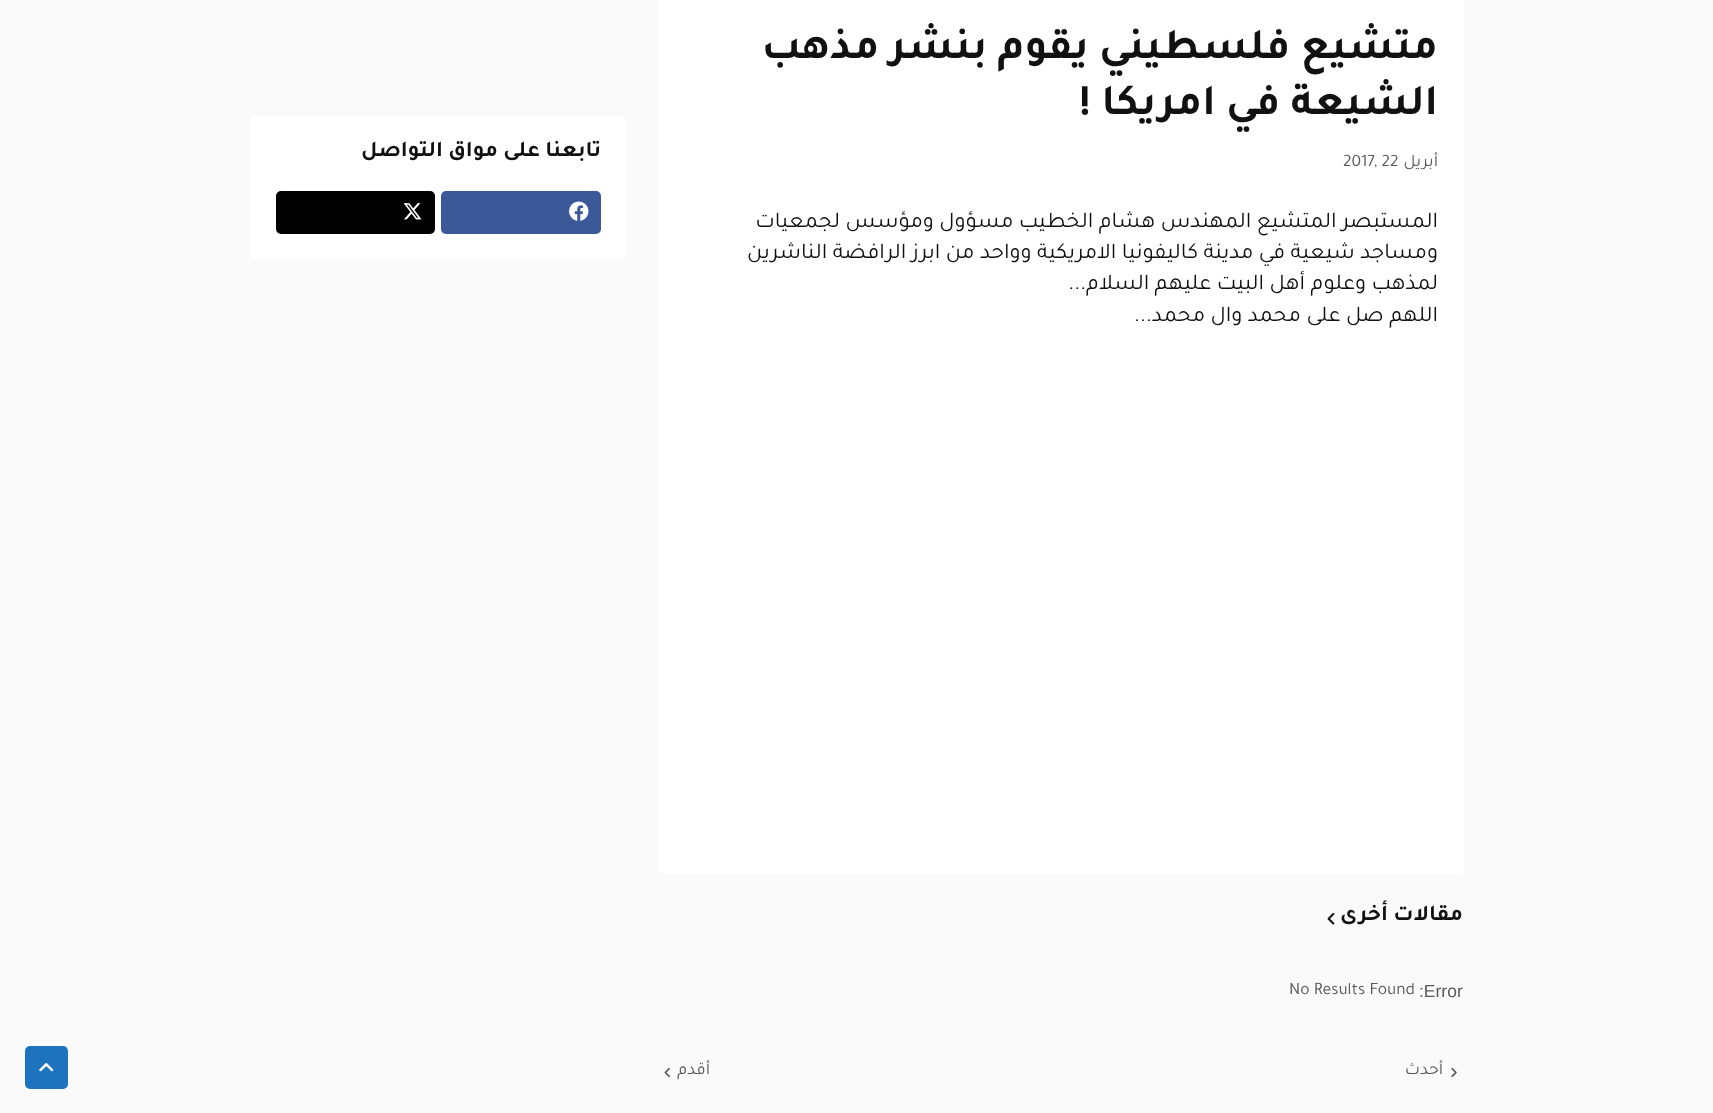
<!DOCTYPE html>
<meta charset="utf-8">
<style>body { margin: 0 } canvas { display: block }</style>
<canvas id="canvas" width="1713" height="1113"></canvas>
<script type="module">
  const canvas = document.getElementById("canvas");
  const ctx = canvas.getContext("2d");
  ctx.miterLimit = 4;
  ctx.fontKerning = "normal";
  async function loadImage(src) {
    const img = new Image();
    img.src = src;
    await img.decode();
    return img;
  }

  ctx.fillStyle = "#fafafa";
  ctx.fillRect(0, 0, 1713, 1113);
  ctx.fillStyle = "#ffffff";
  ctx.beginPath();
  ctx.roundRect(658, -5, 806, 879, 5);
  ctx.fill();
  ctx.direction = "rtl";
  ctx.font = "bold 43.75px Tajawal";
  ctx.fillStyle = "#111111";
  ctx.fillText("متشيع فلسطيني يقوم بنشر مذهب", 1438, 58);
  ctx.fillText("الشيعة في امريكا !", 1438, 114);
  ctx.font = "17.5px Tajawal";
  ctx.fillStyle = "#595959";
  ctx.fillText("أبريل", 1438, 166);
  ctx.direction = "ltr";
  ctx.fillText("2017, 22", 1343, 166);
  ctx.direction = "rtl";
  ctx.font = "22.5px Tajawal";
  ctx.fillStyle = "#111111";
  ctx.fillText("المستبصر المتشيع المهندس هشام الخطيب مسؤول ومؤسس لجمعيات", 1438, 227);
  ctx.fillText("ومساجد شيعية في مدينة كاليفونيا الامريكية وواحد من ابرز الرافضة الناشرين", 1438, 258);
  ctx.fillText("لمذهب وعلوم أهل البيت عليهم السلام...", 1438, 289);
  ctx.fillText("اللهم صل على محمد وال محمد...", 1438, 321);
  ctx.font = "bold 22.5px Tajawal";
  ctx.fillText("مقالات أخرى", 1463, 920);
  ctx.drawImage(await loadImage("img1.png"), 1327, 913, 8, 12);
  ctx.direction = "ltr";
  ctx.font = "17.5px Liberation Sans";
  ctx.fillStyle = "#595959";
  ctx.fillText(":Error", 1419, 997);
  ctx.font = "17.5px Tajawal";
  ctx.fillText("No Results Found", 1289, 994);
  ctx.drawImage(await loadImage("img2.png"), 1451, 1067, 6, 11);
  ctx.direction = "rtl";
  ctx.fillText("أحدث", 1443, 1074);
  ctx.fillText("أقدم", 710, 1074);
  ctx.drawImage(await loadImage("img3.png"), 664, 1067, 6, 11);
  ctx.fillStyle = "#ffffff";
  ctx.beginPath();
  ctx.roundRect(251, 116, 375, 143, 5);
  ctx.fill();
  ctx.font = "bold 22.5px Tajawal";
  ctx.fillStyle = "#111111";
  ctx.fillText("تابعنا على مواق التواصل", 601, 156);
  ctx.fillStyle = "#3b5999";
  ctx.beginPath();
  ctx.roundRect(441, 191, 160, 43, 5);
  ctx.fill();
  ctx.drawImage(await loadImage("img4.png"), 569, 201, 20, 20);
  ctx.fillStyle = "#000000";
  ctx.beginPath();
  ctx.roundRect(276, 191, 159, 43, 5);
  ctx.fill();
  ctx.drawImage(await loadImage("img5.png"), 403, 203, 19, 17);
  ctx.fillStyle = "#1e73be";
  ctx.beginPath();
  ctx.roundRect(25, 1046, 43, 43, 5);
  ctx.fill();
  ctx.drawImage(await loadImage("img6.png"), 39, 1063, 15, 9);
</script>
